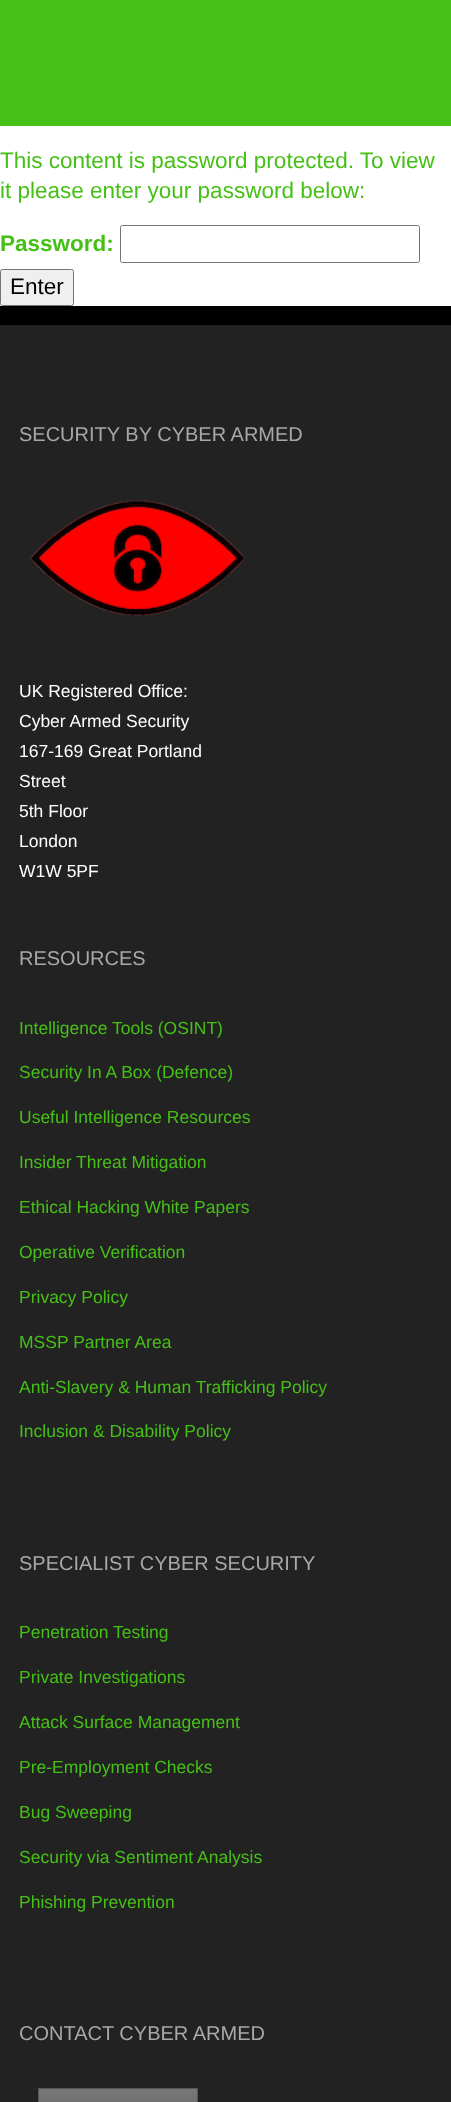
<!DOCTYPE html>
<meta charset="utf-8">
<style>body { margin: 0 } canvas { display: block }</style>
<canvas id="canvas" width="451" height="2102"></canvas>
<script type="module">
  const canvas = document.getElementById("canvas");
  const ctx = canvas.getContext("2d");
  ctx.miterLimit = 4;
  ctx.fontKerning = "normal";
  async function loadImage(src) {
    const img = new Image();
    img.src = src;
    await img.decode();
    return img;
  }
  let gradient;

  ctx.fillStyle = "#000000";
  ctx.fillRect(0, 0, 451, 2102);
  ctx.fillStyle = "#ffffff";
  ctx.fillRect(0, 126, 451, 180);
  ctx.fillStyle = "#46c016";
  ctx.fillRect(0, 0, 451, 126);
  ctx.font = "22.5px Liberation Sans";
  ctx.fillText("This content is password protected. To view", 0, 168);
  ctx.fillText("it please enter your password below:", 0, 198);
  ctx.font = "bold 22.5px Liberation Sans";
  ctx.fillText("Password:", 0, 251);
  ctx.beginPath();
  ctx.roundRect(120.5, 225.5, 299, 37, 2);
  ctx.strokeStyle = "#767676";
  ctx.stroke();
  ctx.fillStyle = "#efefef";
  ctx.beginPath();
  ctx.roundRect(0.5, 269.5, 73, 36, 2);
  ctx.fill();
  ctx.stroke();
  ctx.font = "22.5px Liberation Sans";
  ctx.fillStyle = "#000000";
  ctx.fillText("Enter", 10, 294);
  ctx.fillStyle = "#222222";
  ctx.fillRect(0, 325, 451, 1777);
  ctx.font = "20px Liberation Sans";
  ctx.fillStyle = "#a8a8a8";
  ctx.fillText("SECURITY BY CYBER ARMED", 19, 441);
  ctx.drawImage(await loadImage("img1.png"), 30, 500, 216, 117);
  ctx.font = "17.5px Liberation Sans";
  ctx.fillStyle = "#ffffff";
  ctx.fillText("UK Registered Office:", 19, 697);
  ctx.fillText("Cyber Armed Security", 19, 727);
  ctx.fillText("167-169 Great Portland", 19, 757);
  ctx.fillText("Street", 19, 787);
  ctx.fillText("5th Floor", 19, 817);
  ctx.fillText("London", 19, 847);
  ctx.fillText("W1W 5PF", 19, 877);
  ctx.font = "20px Liberation Sans";
  ctx.fillStyle = "#a8a8a8";
  ctx.fillText("RESOURCES", 19, 965);
  ctx.font = "17.5px Liberation Sans";
  ctx.fillStyle = "#46c016";
  ctx.fillText("Intelligence Tools (OSINT)", 19, 1034);
  ctx.fillText("Security In A Box (Defence)", 19, 1078);
  ctx.fillText("Useful Intelligence Resources", 19, 1123);
  ctx.fillText("Insider Threat Mitigation", 19, 1168);
  ctx.fillText("Ethical Hacking White Papers", 19, 1213);
  ctx.fillText("Operative Verification", 19, 1258);
  ctx.fillText("Privacy Policy", 19, 1303);
  ctx.fillText("MSSP Partner Area", 19, 1348);
  ctx.fillText("Anti-Slavery & Human Trafficking Policy", 19, 1393);
  ctx.fillText("Inclusion & Disability Policy", 19, 1437);
  ctx.font = "20px Liberation Sans";
  ctx.fillStyle = "#a8a8a8";
  ctx.fillText("SPECIALIST CYBER SECURITY", 19, 1570);
  ctx.font = "17.5px Liberation Sans";
  ctx.fillStyle = "#46c016";
  ctx.fillText("Penetration Testing", 19, 1638);
  ctx.fillText("Private Investigations", 19, 1683);
  ctx.fillText("Attack Surface Management", 19, 1728);
  ctx.fillText("Pre-Employment Checks", 19, 1773);
  ctx.fillText("Bug Sweeping", 19, 1818);
  ctx.fillText("Security via Sentiment Analysis", 19, 1863);
  ctx.fillText("Phishing Prevention", 19, 1908);
  ctx.font = "20px Liberation Sans";
  ctx.fillStyle = "#a8a8a8";
  ctx.fillText("CONTACT CYBER ARMED", 19, 2040);
  gradient = ctx.createLinearGradient(118, 2089, 118, 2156);
  gradient.addColorStop(0, "#777777");
  gradient.addColorStop(1, "#575757");
  ctx.fillStyle = gradient;
  ctx.fillRect(39, 2089, 158, 13);
  ctx.strokeStyle = "#555555";
  ctx.strokeRect(38.5, 2088.5, 159, 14);
</script>
